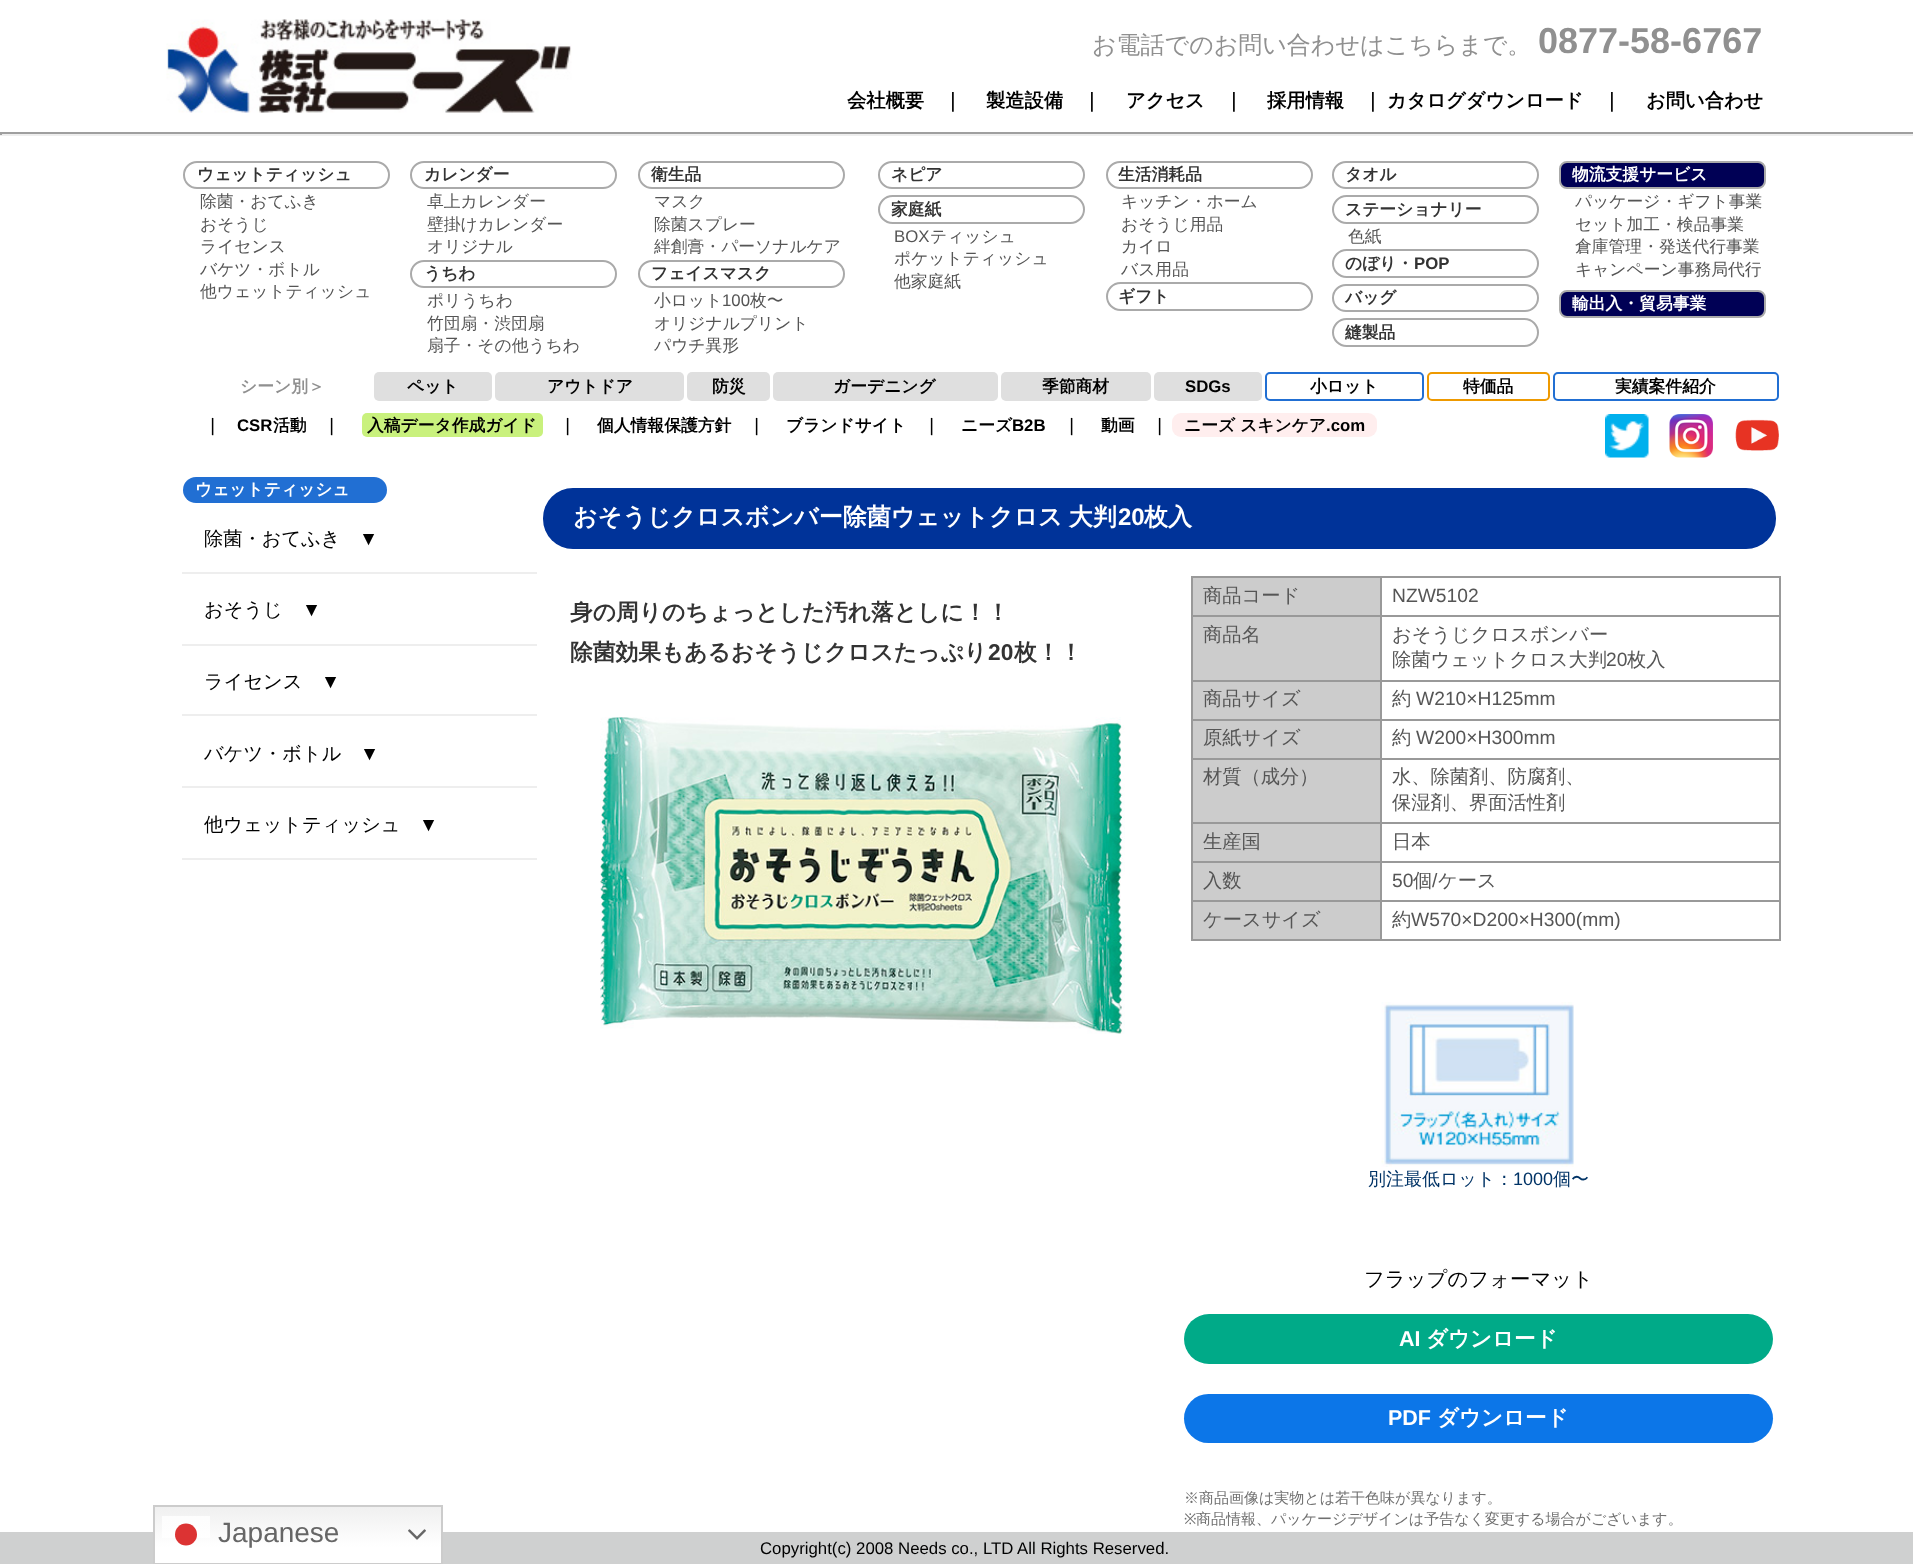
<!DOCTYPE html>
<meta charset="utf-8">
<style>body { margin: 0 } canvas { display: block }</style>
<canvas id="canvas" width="1913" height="1564"></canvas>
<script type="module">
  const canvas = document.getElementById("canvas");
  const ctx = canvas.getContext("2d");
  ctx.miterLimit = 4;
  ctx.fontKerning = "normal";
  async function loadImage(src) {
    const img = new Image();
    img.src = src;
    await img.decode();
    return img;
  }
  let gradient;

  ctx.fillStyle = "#ffffff";
  ctx.fillRect(0, 0, 1913, 1564);
  ctx.drawImage(await loadImage("img1.png"), 166, 19, 406, 94);
  ctx.font = "500 24px WenQuanYi Zen Hei";
  ctx.fillStyle = "#909090";
  ctx.fillText("お電話でのお問い合わせはこちらまで。", 1092, 53);
  ctx.font = "bold 36px Liberation Sans";
  ctx.fillText("0877-58-6767", 1538, 53);
  ctx.font = "bold 19.25px WenQuanYi Zen Hei";
  ctx.fillStyle = "#000000";
  ctx.fillText("会社概要", 847, 107);
  ctx.fillText("｜", 943, 107);
  ctx.fillText("製造設備", 986, 107);
  ctx.fillText("｜", 1082, 107);
  ctx.fillText("アクセス", 1126, 107);
  ctx.fillText("｜", 1224, 107);
  ctx.fillText("採用情報", 1267, 107);
  ctx.fillText("｜", 1363, 107);
  ctx.fillText("カタログダウンロード", 1387, 107);
  ctx.fillText("｜", 1602, 107);
  ctx.fillText("お問い合わせ", 1646, 107);
  ctx.fillStyle = "#9f9f9f";
  ctx.fillRect(0, 132, 1913, 2);
  ctx.fillStyle = "#eeeeee";
  ctx.fillRect(0, 134, 1913, 2);
  ctx.fillStyle = "#9f9f9f";
  ctx.fillRect(0, 132, 2, 3);
  ctx.beginPath();
  ctx.roundRect(184, 162, 205, 26, 13);
  ctx.strokeStyle = "#aaaaaa";
  ctx.lineWidth = 2;
  ctx.stroke();
  ctx.font = "bold 16.8px WenQuanYi Zen Hei";
  ctx.fillStyle = "#333333";
  ctx.fillText("ウェットティッシュ", 197, 180);
  ctx.font = "500 16.8px WenQuanYi Zen Hei";
  ctx.fillStyle = "#555555";
  ctx.fillText("除菌・おてふき", 200, 207);
  ctx.fillText("おそうじ", 200, 230);
  ctx.fillText("ライセンス", 200, 252);
  ctx.fillText("バケツ・ボトル", 200, 275);
  ctx.fillText("他ウェットティッシュ", 200, 297);
  ctx.beginPath();
  ctx.roundRect(411, 162, 205, 26, 13);
  ctx.stroke();
  ctx.font = "bold 16.8px WenQuanYi Zen Hei";
  ctx.fillStyle = "#333333";
  ctx.fillText("カレンダー", 424, 180);
  ctx.font = "500 16.8px WenQuanYi Zen Hei";
  ctx.fillStyle = "#555555";
  ctx.fillText("卓上カレンダー", 427, 207);
  ctx.fillText("壁掛けカレンダー", 427, 230);
  ctx.fillText("オリジナル", 427, 252);
  ctx.beginPath();
  ctx.roundRect(411, 261, 205, 26, 13);
  ctx.stroke();
  ctx.font = "bold 16.8px WenQuanYi Zen Hei";
  ctx.fillStyle = "#333333";
  ctx.fillText("うちわ", 424, 279);
  ctx.font = "500 16.8px WenQuanYi Zen Hei";
  ctx.fillStyle = "#555555";
  ctx.fillText("ポリうちわ", 427, 306);
  ctx.fillText("竹団扇・渋団扇", 427, 329);
  ctx.fillText("扇子・その他うちわ", 427, 351);
  ctx.beginPath();
  ctx.roundRect(639, 162, 205, 26, 13);
  ctx.stroke();
  ctx.font = "bold 16.8px WenQuanYi Zen Hei";
  ctx.fillStyle = "#333333";
  ctx.fillText("衛生品", 651, 180);
  ctx.font = "500 16.8px WenQuanYi Zen Hei";
  ctx.fillStyle = "#555555";
  ctx.fillText("マスク", 654, 207);
  ctx.fillText("除菌スプレー", 654, 230);
  ctx.fillText("絆創膏・パーソナルケア", 654, 252);
  ctx.beginPath();
  ctx.roundRect(639, 261, 205, 26, 13);
  ctx.stroke();
  ctx.font = "bold 16.8px WenQuanYi Zen Hei";
  ctx.fillStyle = "#333333";
  ctx.fillText("フェイスマスク", 651, 279);
  ctx.font = "500 16.8px WenQuanYi Zen Hei";
  ctx.fillStyle = "#555555";
  ctx.fillText("小ロット", 654, 306);
  ctx.font = "16.8px Liberation Sans";
  ctx.fillText("100", 722, 306);
  ctx.font = "500 16.8px WenQuanYi Zen Hei";
  ctx.fillText("枚〜", 750, 306);
  ctx.fillText("オリジナルプリント", 654, 329);
  ctx.fillText("パウチ異形", 654, 351);
  ctx.beginPath();
  ctx.roundRect(879, 162, 205, 26, 13);
  ctx.stroke();
  ctx.font = "bold 16.8px WenQuanYi Zen Hei";
  ctx.fillStyle = "#333333";
  ctx.fillText("ネピア", 891, 180);
  ctx.beginPath();
  ctx.roundRect(879, 196, 205, 27, 13.5);
  ctx.stroke();
  ctx.fillText("家庭紙", 891, 215);
  ctx.font = "16.8px Liberation Sans";
  ctx.fillStyle = "#555555";
  ctx.fillText("BOX", 894, 242);
  ctx.font = "500 16.8px WenQuanYi Zen Hei";
  ctx.fillText("ティッシュ", 930, 242);
  ctx.fillText("ポケットティッシュ", 894, 264);
  ctx.fillText("他家庭紙", 894, 287);
  ctx.beginPath();
  ctx.roundRect(1107, 162, 205, 26, 13);
  ctx.stroke();
  ctx.font = "bold 16.8px WenQuanYi Zen Hei";
  ctx.fillStyle = "#333333";
  ctx.fillText("生活消耗品", 1118, 180);
  ctx.font = "500 16.8px WenQuanYi Zen Hei";
  ctx.fillStyle = "#555555";
  ctx.fillText("キッチン・ホーム", 1121, 207);
  ctx.fillText("おそうじ用品", 1121, 230);
  ctx.fillText("カイロ", 1121, 252);
  ctx.fillText("バス用品", 1121, 275);
  ctx.beginPath();
  ctx.roundRect(1107, 283, 205, 27, 13.5);
  ctx.stroke();
  ctx.font = "bold 16.8px WenQuanYi Zen Hei";
  ctx.fillStyle = "#333333";
  ctx.fillText("ギフト", 1118, 302);
  ctx.beginPath();
  ctx.roundRect(1333, 162, 205, 26, 13);
  ctx.stroke();
  ctx.fillText("タオル", 1345, 180);
  ctx.beginPath();
  ctx.roundRect(1333, 196, 205, 27, 13.5);
  ctx.stroke();
  ctx.fillText("ステーショナリー", 1345, 215);
  ctx.font = "500 16.8px WenQuanYi Zen Hei";
  ctx.fillStyle = "#555555";
  ctx.fillText("色紙", 1348, 242);
  ctx.beginPath();
  ctx.roundRect(1333, 250, 205, 27, 13.5);
  ctx.stroke();
  ctx.font = "bold 16.8px WenQuanYi Zen Hei";
  ctx.fillStyle = "#333333";
  ctx.fillText("のぼり・", 1345, 269);
  ctx.font = "bold 16.8px Liberation Sans";
  ctx.fillText("POP", 1414, 269);
  ctx.beginPath();
  ctx.roundRect(1333, 285, 205, 26, 13);
  ctx.stroke();
  ctx.font = "bold 16.8px WenQuanYi Zen Hei";
  ctx.fillText("バッグ", 1345, 303);
  ctx.beginPath();
  ctx.roundRect(1333, 319, 205, 27, 13.5);
  ctx.stroke();
  ctx.fillText("縫製品", 1345, 338);
  ctx.fillStyle = "#000055";
  ctx.beginPath();
  ctx.roundRect(1560, 162, 205, 26, 7);
  ctx.fill();
  ctx.stroke();
  ctx.fillStyle = "#ffffff";
  ctx.fillText("物流支援サービス", 1572, 180);
  ctx.font = "500 16.8px WenQuanYi Zen Hei";
  ctx.fillStyle = "#555555";
  ctx.fillText("パッケージ・ギフト事業", 1575, 207);
  ctx.fillText("セット加工・検品事業", 1575, 230);
  ctx.fillText("倉庫管理・発送代行事業", 1575, 252);
  ctx.fillText("キャンペーン事務局代行", 1575, 275);
  ctx.fillStyle = "#000055";
  ctx.beginPath();
  ctx.roundRect(1560, 291, 205, 26, 7);
  ctx.fill();
  ctx.stroke();
  ctx.font = "bold 16.8px WenQuanYi Zen Hei";
  ctx.fillStyle = "#ffffff";
  ctx.fillText("輸出入・貿易事業", 1572, 309);
  ctx.fillStyle = "#909090";
  ctx.fillText("シーン別＞", 240, 392);
  ctx.fillStyle = "#dfdfdf";
  ctx.beginPath();
  ctx.roundRect(374, 372, 118, 29, 5);
  ctx.fill();
  ctx.fillStyle = "#000000";
  ctx.fillText("ペット", 407, 392);
  ctx.fillStyle = "#dfdfdf";
  ctx.beginPath();
  ctx.roundRect(495, 372, 189, 29, 5);
  ctx.fill();
  ctx.fillStyle = "#000000";
  ctx.fillText("アウトドア", 547, 392);
  ctx.fillStyle = "#dfdfdf";
  ctx.beginPath();
  ctx.roundRect(687, 372, 83, 29, 5);
  ctx.fill();
  ctx.fillStyle = "#000000";
  ctx.fillText("防災", 712, 392);
  ctx.fillStyle = "#dfdfdf";
  ctx.beginPath();
  ctx.roundRect(773, 372, 225, 29, 5);
  ctx.fill();
  ctx.fillStyle = "#000000";
  ctx.fillText("ガーデニング", 833, 392);
  ctx.fillStyle = "#dfdfdf";
  ctx.beginPath();
  ctx.roundRect(1001, 372, 150, 29, 5);
  ctx.fill();
  ctx.fillStyle = "#000000";
  ctx.fillText("季節商材", 1042, 392);
  ctx.fillStyle = "#dfdfdf";
  ctx.beginPath();
  ctx.roundRect(1154, 372, 108, 29, 5);
  ctx.fill();
  ctx.font = "bold 16.8px Liberation Sans";
  ctx.fillStyle = "#000000";
  ctx.fillText("SDGs", 1185, 392);
  ctx.beginPath();
  ctx.roundRect(1266, 373, 157, 27, 4);
  ctx.strokeStyle = "#216fd3";
  ctx.stroke();
  ctx.font = "bold 16.8px WenQuanYi Zen Hei";
  ctx.fillText("小ロット", 1310, 392);
  ctx.beginPath();
  ctx.roundRect(1428, 373, 121, 27, 4);
  ctx.strokeStyle = "#ee9900";
  ctx.stroke();
  ctx.fillText("特価品", 1463, 392);
  ctx.beginPath();
  ctx.roundRect(1554, 373, 224, 27, 4);
  ctx.strokeStyle = "#216fd3";
  ctx.stroke();
  ctx.fillText("実績案件紹介", 1615, 392);
  ctx.fillText("｜", 204, 431);
  ctx.font = "bold 16.8px Liberation Sans";
  ctx.fillText("CSR", 237, 431);
  ctx.font = "bold 16.8px WenQuanYi Zen Hei";
  ctx.fillText("活動", 273, 431);
  ctx.fillText("｜", 323, 431);
  ctx.fillStyle = "#c9f17d";
  ctx.beginPath();
  ctx.roundRect(362, 413, 181, 24, 5);
  ctx.fill();
  ctx.fillStyle = "#000000";
  ctx.fillText("入稿データ作成ガイド", 367, 431);
  ctx.fillText("｜", 559, 431);
  ctx.fillText("個人情報保護方針", 597, 431);
  ctx.fillText("｜", 748, 431);
  ctx.fillText("ブランドサイト", 786, 431);
  ctx.fillText("｜", 923, 431);
  ctx.fillText("ニーズ", 961, 431);
  ctx.font = "bold 16.8px Liberation Sans";
  ctx.fillText("B2B", 1012, 431);
  ctx.font = "bold 16.8px WenQuanYi Zen Hei";
  ctx.fillText("｜", 1063, 431);
  ctx.fillText("動画", 1101, 431);
  ctx.fillText("｜", 1151, 431);
  ctx.fillStyle = "#ffeeee";
  ctx.beginPath();
  ctx.roundRect(1172, 413, 205, 24, 9);
  ctx.fill();
  ctx.fillStyle = "#000000";
  ctx.fillText("ニーズ スキンケア", 1184, 431);
  ctx.font = "bold 16.8px Liberation Sans";
  ctx.fillText(".com", 1326, 431);
  ctx.drawImage(await loadImage("img2.png"), 1605, 414, 44, 44);
  ctx.drawImage(await loadImage("img3.png"), 1669, 414, 44, 44);
  ctx.drawImage(await loadImage("img4.png"), 1735, 419, 44, 32);
  ctx.fillStyle = "#216fd3";
  ctx.beginPath();
  ctx.roundRect(183, 477, 204, 26, 13);
  ctx.fill();
  ctx.font = "bold 16.8px WenQuanYi Zen Hei";
  ctx.fillStyle = "#ffffff";
  ctx.fillText("ウェットティッシュ", 195, 495);
  ctx.fillStyle = "#eeeeee";
  ctx.fillRect(182, 572, 355, 2);
  ctx.font = "500 19.25px WenQuanYi Zen Hei";
  ctx.fillStyle = "#000000";
  ctx.fillText("除菌・おてふき", 204, 545);
  ctx.font = "19.25px Liberation Sans";
  ctx.fillText("▼", 359, 545);
  ctx.fillStyle = "#eeeeee";
  ctx.fillRect(182, 644, 355, 2);
  ctx.font = "500 19.25px WenQuanYi Zen Hei";
  ctx.fillStyle = "#000000";
  ctx.fillText("おそうじ", 204, 616);
  ctx.font = "19.25px Liberation Sans";
  ctx.fillText("▼", 302, 616);
  ctx.fillStyle = "#eeeeee";
  ctx.fillRect(182, 714, 355, 2);
  ctx.font = "500 19.25px WenQuanYi Zen Hei";
  ctx.fillStyle = "#000000";
  ctx.fillText("ライセンス", 204, 688);
  ctx.font = "19.25px Liberation Sans";
  ctx.fillText("▼", 321, 688);
  ctx.fillStyle = "#eeeeee";
  ctx.fillRect(182, 786, 355, 2);
  ctx.font = "500 19.25px WenQuanYi Zen Hei";
  ctx.fillStyle = "#000000";
  ctx.fillText("バケツ・ボトル", 204, 760);
  ctx.font = "19.25px Liberation Sans";
  ctx.fillText("▼", 360, 760);
  ctx.fillStyle = "#eeeeee";
  ctx.fillRect(182, 858, 355, 2);
  ctx.font = "500 19.25px WenQuanYi Zen Hei";
  ctx.fillStyle = "#000000";
  ctx.fillText("他ウェットティッシュ", 204, 831);
  ctx.font = "19.25px Liberation Sans";
  ctx.fillText("▼", 419, 831);
  ctx.fillStyle = "#003399";
  ctx.beginPath();
  ctx.roundRect(543, 488, 1233, 61, 30);
  ctx.fill();
  ctx.wordSpacing = "-1px";
  ctx.font = "bold 24px WenQuanYi Zen Hei";
  ctx.fillStyle = "#ffffff";
  ctx.fillText("おそうじクロスボンバー除菌ウェットクロス 大判", 573, 525);
  ctx.wordSpacing = "0px";
  ctx.font = "bold 24px Liberation Sans";
  ctx.fillText("20", 1118, 525);
  ctx.font = "bold 24px WenQuanYi Zen Hei";
  ctx.fillText("枚入", 1144, 525);
  ctx.font = "bold 22.75px WenQuanYi Zen Hei";
  ctx.fillStyle = "#333333";
  ctx.fillText("身の周りのちょっとした汚れ落としに！！", 570, 620);
  ctx.fillText("除菌効果もあるおそうじクロスたっぷり", 570, 660);
  ctx.font = "bold 22.75px Liberation Sans";
  ctx.fillText("20", 988, 660);
  ctx.font = "bold 22.75px WenQuanYi Zen Hei";
  ctx.fillText("枚！！", 1014, 660);
  ctx.drawImage(await loadImage("img5.png"), 600, 717, 525, 317);
  ctx.fillStyle = "#999999";
  ctx.fillRect(1191, 576, 590, 2);
  ctx.fillRect(1779, 576, 2, 365);
  ctx.fillRect(1191, 939, 590, 2);
  ctx.fillRect(1191, 576, 2, 365);
  ctx.fillStyle = "#cccccc";
  ctx.fillRect(1193, 578, 187, 37);
  ctx.font = "500 19.25px WenQuanYi Zen Hei";
  ctx.fillStyle = "#555555";
  ctx.fillText("商品コード", 1203, 602);
  ctx.fillStyle = "#999999";
  ctx.fillRect(1380, 615, 401, 2);
  ctx.fillRect(1380, 680, 401, 2);
  ctx.fillRect(1380, 719, 401, 2);
  ctx.fillRect(1380, 758, 401, 2);
  ctx.fillRect(1380, 822, 401, 2);
  ctx.fillRect(1380, 861, 401, 2);
  ctx.fillRect(1380, 900, 401, 2);
  ctx.fillRect(1380, 900, 2, 41);
  ctx.fillRect(1191, 900, 191, 2);
  ctx.fillRect(1380, 861, 2, 41);
  ctx.fillRect(1191, 861, 191, 2);
  ctx.fillRect(1380, 822, 2, 41);
  ctx.fillRect(1191, 822, 191, 2);
  ctx.fillRect(1380, 758, 2, 66);
  ctx.fillRect(1191, 758, 191, 2);
  ctx.fillRect(1380, 719, 2, 40);
  ctx.fillRect(1191, 719, 191, 2);
  ctx.fillRect(1380, 680, 2, 40);
  ctx.fillRect(1191, 680, 191, 2);
  ctx.fillRect(1380, 615, 2, 66);
  ctx.fillRect(1191, 615, 191, 2);
  ctx.fillRect(1380, 576, 2, 41);
  ctx.font = "19.25px Liberation Sans";
  ctx.fillStyle = "#555555";
  ctx.fillText("NZW5102", 1392, 602);
  ctx.fillStyle = "#cccccc";
  ctx.fillRect(1193, 617, 187, 63);
  ctx.font = "500 19.25px WenQuanYi Zen Hei";
  ctx.fillStyle = "#555555";
  ctx.fillText("商品名", 1203, 641);
  ctx.fillText("おそうじクロスボンバー", 1392, 641);
  ctx.fillText("除菌ウェットクロス大判", 1392, 666);
  ctx.font = "19.25px Liberation Sans";
  ctx.fillText("20", 1606, 666);
  ctx.font = "500 19.25px WenQuanYi Zen Hei";
  ctx.fillText("枚入", 1627, 666);
  ctx.fillStyle = "#cccccc";
  ctx.fillRect(1193, 682, 187, 37);
  ctx.fillStyle = "#555555";
  ctx.fillText("商品サイズ", 1203, 705);
  ctx.fillText("約", 1392, 705);
  ctx.font = "19.25px Liberation Sans";
  ctx.fillText("W210×H125mm", 1416, 705);
  ctx.fillStyle = "#cccccc";
  ctx.fillRect(1193, 721, 187, 37);
  ctx.font = "500 19.25px WenQuanYi Zen Hei";
  ctx.fillStyle = "#555555";
  ctx.fillText("原紙サイズ", 1203, 744);
  ctx.fillText("約", 1392, 744);
  ctx.font = "19.25px Liberation Sans";
  ctx.fillText("W200×H300mm", 1416, 744);
  ctx.fillStyle = "#cccccc";
  ctx.fillRect(1193, 760, 187, 62);
  ctx.font = "500 19.25px WenQuanYi Zen Hei";
  ctx.fillStyle = "#555555";
  ctx.fillText("材質（成分）", 1203, 783);
  ctx.fillText("水、除菌剤、防腐剤、", 1392, 783);
  ctx.fillText("保湿剤、界面活性剤", 1392, 809);
  ctx.fillStyle = "#cccccc";
  ctx.fillRect(1193, 824, 187, 37);
  ctx.fillStyle = "#555555";
  ctx.fillText("生産国", 1203, 848);
  ctx.fillText("日本", 1392, 848);
  ctx.fillStyle = "#cccccc";
  ctx.fillRect(1193, 863, 187, 37);
  ctx.fillStyle = "#555555";
  ctx.fillText("入数", 1203, 887);
  ctx.font = "19.25px Liberation Sans";
  ctx.fillText("50", 1392, 887);
  ctx.font = "500 19.25px WenQuanYi Zen Hei";
  ctx.fillText("個", 1413, 887);
  ctx.font = "19.25px Liberation Sans";
  ctx.fillText("/", 1432, 887);
  ctx.font = "500 19.25px WenQuanYi Zen Hei";
  ctx.fillText("ケース", 1438, 887);
  ctx.fillStyle = "#cccccc";
  ctx.fillRect(1193, 902, 187, 37);
  ctx.fillStyle = "#555555";
  ctx.fillText("ケースサイズ", 1203, 926);
  ctx.fillText("約", 1392, 926);
  ctx.font = "19.25px Liberation Sans";
  ctx.fillText("W570×D200×H300(mm)", 1411, 926);
  ctx.drawImage(await loadImage("img6.png"), 1381, 1002, 193, 165);
  ctx.font = "500 18px WenQuanYi Zen Hei";
  ctx.fillStyle = "#003366";
  ctx.fillText("別注最低ロット：", 1368, 1185);
  ctx.font = "18px Liberation Sans";
  ctx.fillText("1000", 1513, 1185);
  ctx.font = "500 18px WenQuanYi Zen Hei";
  ctx.fillText("個〜", 1553, 1185);
  ctx.font = "500 20.4px WenQuanYi Zen Hei";
  ctx.fillStyle = "#000000";
  ctx.fillText("フラップのフォーマット", 1364, 1286);
  ctx.fillStyle = "#00aa88";
  ctx.beginPath();
  ctx.roundRect(1184, 1314, 589, 50, 25);
  ctx.fill();
  ctx.font = "bold 21.5px Liberation Sans";
  ctx.fillStyle = "#ffffff";
  ctx.fillText("AI", 1399, 1346);
  ctx.font = "bold 21.5px WenQuanYi Zen Hei";
  ctx.fillText("ダウンロード", 1426, 1346);
  ctx.fillStyle = "#0c76e8";
  ctx.beginPath();
  ctx.roundRect(1184, 1394, 589, 49, 24.5);
  ctx.fill();
  ctx.font = "bold 21.5px Liberation Sans";
  ctx.fillStyle = "#ffffff";
  ctx.fillText("PDF", 1388, 1425);
  ctx.font = "bold 21.5px WenQuanYi Zen Hei";
  ctx.fillText("ダウンロード", 1437, 1425);
  ctx.font = "500 15px WenQuanYi Zen Hei";
  ctx.fillStyle = "#707070";
  ctx.fillText("※商品画像は実物とは若干色味が異なります。", 1184, 1503);
  ctx.font = "15px Noto Sans";
  ctx.fillText("※", 1184, 1524);
  ctx.font = "500 15px WenQuanYi Zen Hei";
  ctx.fillText("商品情報、パッケージデザインは予告なく変更する場合がございます。", 1196, 1524);
  ctx.fillStyle = "#cfd0d0";
  ctx.fillRect(0, 1532, 1913, 32);
  gradient = ctx.createLinearGradient(298, 1505, 298, 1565);
  gradient.addColorStop(0, "#efefef");
  gradient.addColorStop(0.7, "#ffffff");
  ctx.fillStyle = gradient;
  ctx.fillRect(155, 1507, 286, 56);
  gradient = ctx.createLinearGradient(298, 1505, 298, 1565);
  gradient.addColorStop(0, "#fcfcfc");
  gradient.addColorStop(0.7, "#ffffff");
  ctx.fillStyle = gradient;
  ctx.fillRect(162, 1516, 48, 22);
  ctx.strokeStyle = "#cccccc";
  ctx.strokeRect(154, 1506, 288, 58);
  ctx.fillStyle = "#dc3333";
  ctx.beginPath();
  ctx.arc(186, 1534.5, 11, 0, Math.PI * 2);
  ctx.fill();
  ctx.font = "28px Liberation Sans";
  ctx.fillStyle = "#666666";
  ctx.fillText("Japanese", 218, 1542);
  ctx.drawImage(await loadImage("img7.png"), 408, 1529, 18, 11);
  ctx.font = "16.8px Liberation Sans";
  ctx.fillStyle = "#000000";
  ctx.fillText("Copyright(c) 2008 Needs co., LTD All Rights Reserved.", 760, 1554);
</script>
